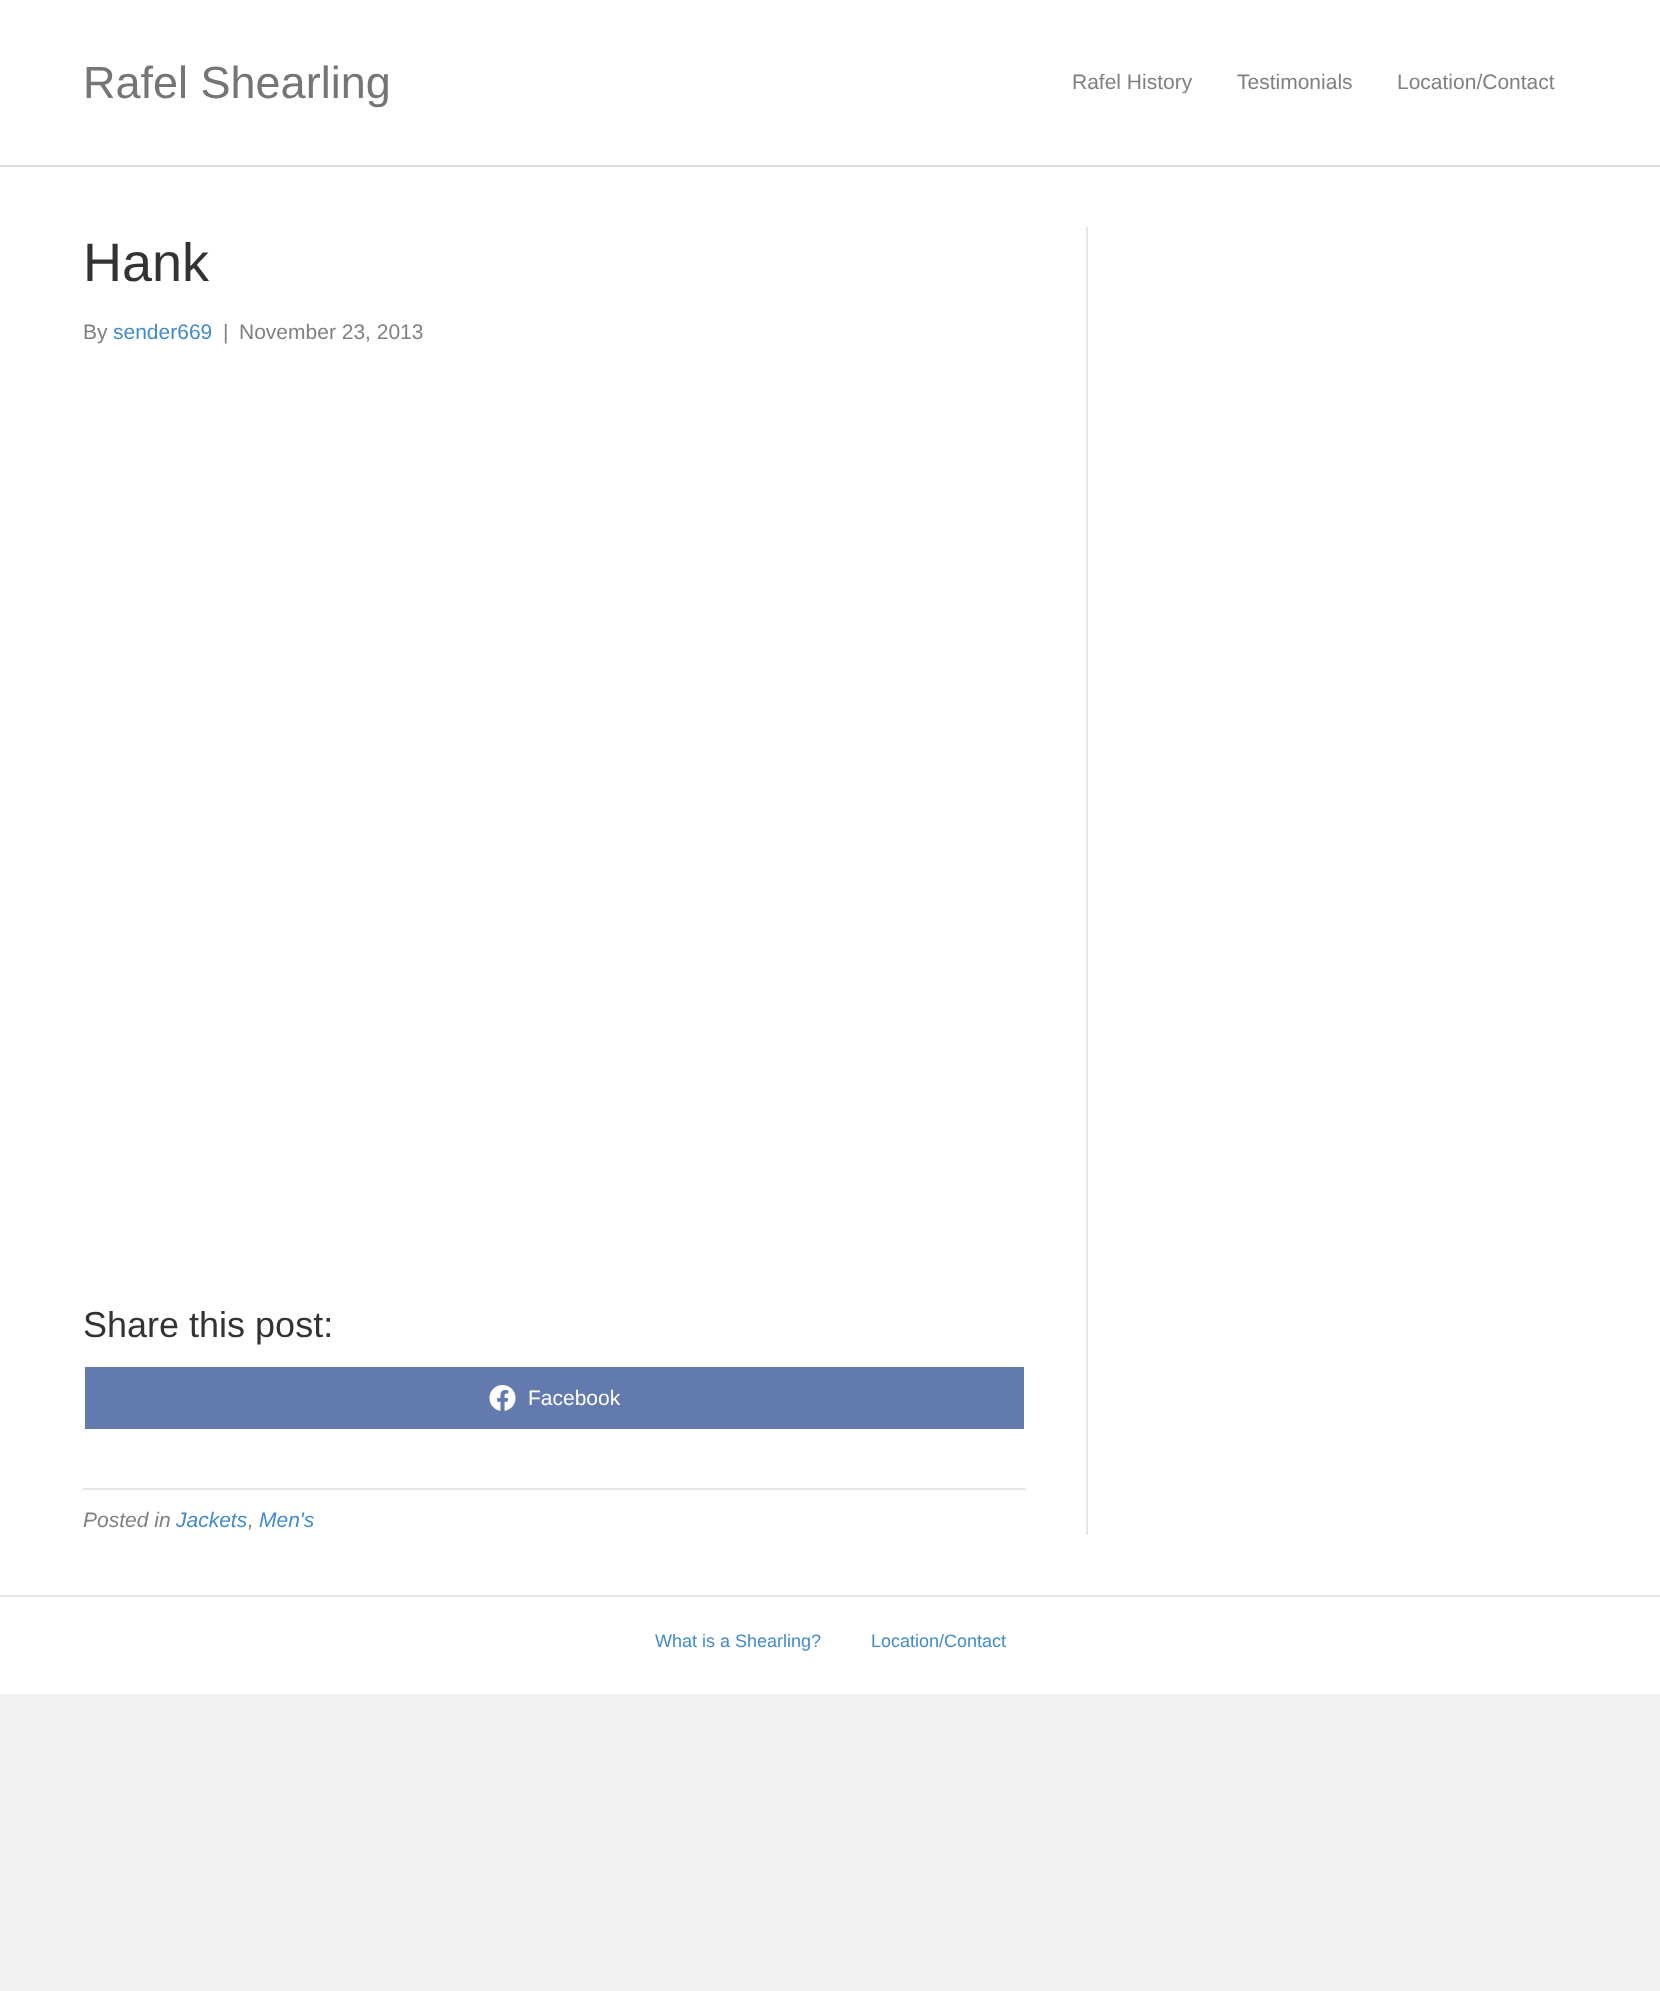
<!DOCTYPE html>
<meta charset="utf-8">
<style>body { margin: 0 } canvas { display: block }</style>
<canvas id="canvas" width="1660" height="1991"></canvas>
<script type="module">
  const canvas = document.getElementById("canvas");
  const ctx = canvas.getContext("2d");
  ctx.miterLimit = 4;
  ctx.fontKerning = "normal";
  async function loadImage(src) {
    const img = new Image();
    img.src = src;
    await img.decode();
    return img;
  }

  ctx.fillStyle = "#f2f2f2";
  ctx.fillRect(0, 0, 1660, 1991);
  ctx.fillStyle = "#ffffff";
  ctx.fillRect(0, 0, 1660, 165);
  ctx.fillStyle = "#dedede";
  ctx.fillRect(0, 165, 1660, 2);
  ctx.font = "45px Liberation Sans";
  ctx.fillStyle = "#757575";
  ctx.fillText("Rafel Shearling", 83, 98);
  ctx.font = "21px Liberation Sans";
  ctx.fillStyle = "#808080";
  ctx.fillText("Rafel History", 1072, 89);
  ctx.fillText("Testimonials", 1237, 89);
  ctx.fillText("Location/Contact", 1397, 89);
  ctx.fillStyle = "#ffffff";
  ctx.fillRect(0, 167, 1660, 1428);
  ctx.fillStyle = "#e6e6e6";
  ctx.fillRect(1086, 227, 2, 1308);
  ctx.font = "54px Liberation Sans";
  ctx.fillStyle = "#333333";
  ctx.fillText("Hank", 83, 281);
  ctx.font = "21px Liberation Sans";
  ctx.fillStyle = "#808080";
  ctx.fillText("By", 83, 339);
  ctx.fillStyle = "#428bca";
  ctx.fillText("sender669", 113, 339);
  ctx.fillStyle = "#808080";
  ctx.fillText("|", 223, 339);
  ctx.fillText("November 23, 2013", 239, 339);
  ctx.font = "36px Liberation Sans";
  ctx.fillStyle = "#333333";
  ctx.fillText("Share this post:", 83, 1337);
  ctx.fillStyle = "#627aad";
  ctx.fillRect(85, 1367, 939, 62);
  ctx.drawImage(await loadImage("img1.png"), 489, 1385, 27, 26);
  ctx.font = "21px Liberation Sans";
  ctx.fillStyle = "#ffffff";
  ctx.fillText("Facebook", 528, 1405);
  ctx.fillStyle = "#e6e6e6";
  ctx.fillRect(83, 1488, 943, 2);
  ctx.font = "italic 21px Liberation Sans";
  ctx.fillStyle = "#808080";
  ctx.fillText("Posted in", 83, 1527);
  ctx.fillStyle = "#428bca";
  ctx.fillText("Jackets", 176, 1527);
  ctx.fillStyle = "#808080";
  ctx.fillText(",", 248, 1527);
  ctx.fillStyle = "#428bca";
  ctx.fillText("Men's", 259, 1527);
  ctx.fillStyle = "#ffffff";
  ctx.fillRect(0, 1597, 1660, 97);
  ctx.fillStyle = "#e6e6e6";
  ctx.fillRect(0, 1595, 1660, 2);
  ctx.font = "18px Liberation Sans";
  ctx.fillStyle = "#428bca";
  ctx.fillText("What is a Shearling?", 655, 1647);
  ctx.fillText("Location/Contact", 871, 1647);
</script>
